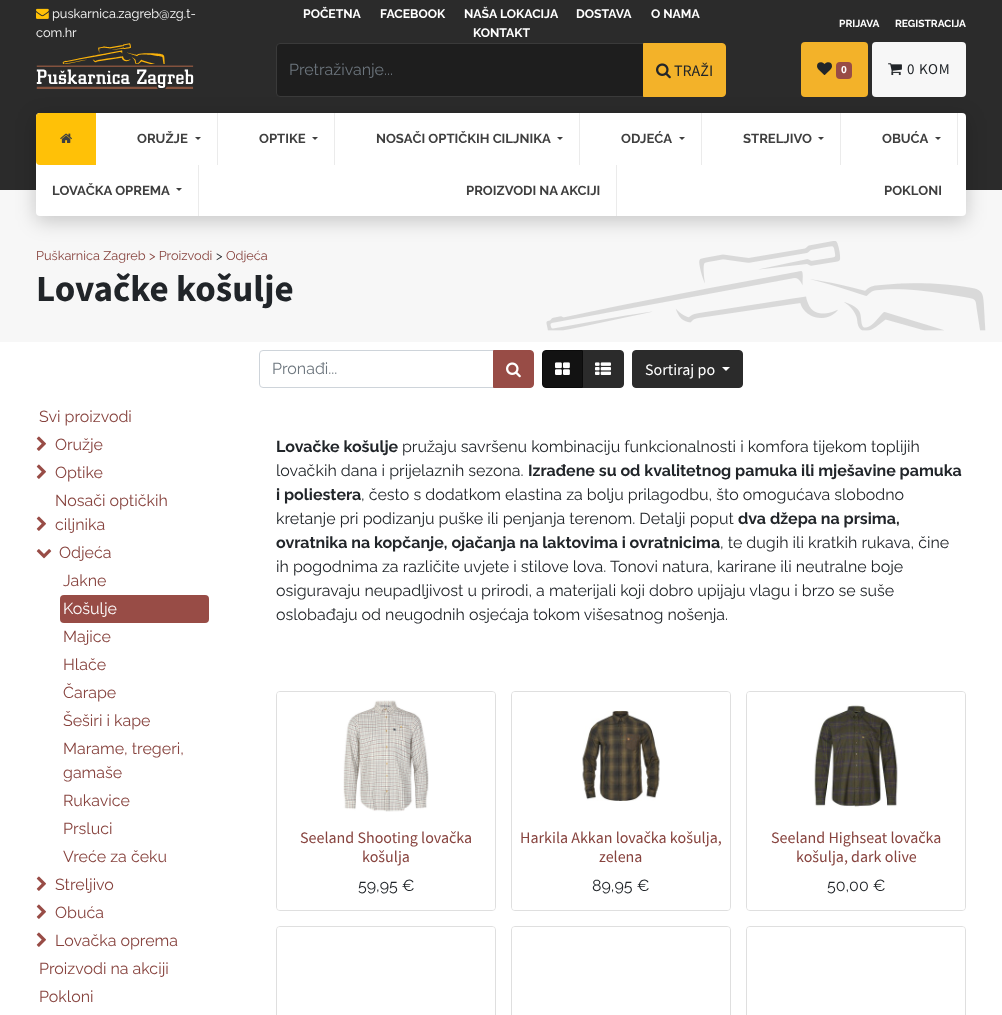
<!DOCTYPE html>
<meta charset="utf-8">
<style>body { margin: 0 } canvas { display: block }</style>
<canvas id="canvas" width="1002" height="1015"></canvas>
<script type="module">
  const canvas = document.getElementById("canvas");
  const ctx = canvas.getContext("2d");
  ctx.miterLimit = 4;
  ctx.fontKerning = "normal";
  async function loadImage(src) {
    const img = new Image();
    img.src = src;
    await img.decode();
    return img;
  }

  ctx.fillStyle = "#ffffff";
  ctx.fillRect(0, 0, 1002, 1015);
  ctx.fillStyle = "#2b2b2b";
  ctx.fillRect(0, 0, 1002, 190);
  ctx.drawImage(await loadImage("img1.png"), 36, 8, 13, 11);
  ctx.font = "12.75px Raleway";
  ctx.fillStyle = "#ffffff";
  ctx.fillText("puskarnica.zagreb@zg.t-", 52, 18);
  ctx.fillText("com.hr", 36, 37);
  ctx.font = "bold 12.25px Raleway";
  ctx.fillText("POČETNA", 303, 18);
  ctx.fillText("FACEBOOK", 380, 18);
  ctx.fillText("NAŠA LOKACIJA", 464, 18);
  ctx.fillText("DOSTAVA", 576, 18);
  ctx.fillText("O NAMA", 651, 18);
  ctx.fillText("KONTAKT", 473, 37);
  ctx.font = "bold 10.25px Raleway";
  ctx.fillText("PRIJAVA", 839, 27);
  ctx.fillText("REGISTRACIJA", 895, 27);
  ctx.drawImage(await loadImage("img2.png"), 36, 43, 158, 46);
  ctx.fillStyle = "#1e1e1e";
  ctx.beginPath();
  ctx.roundRect(276.5, 43.5, 367, 53, [3.5, 0, 0, 3.5]);
  ctx.fill();
  ctx.strokeStyle = "#3a3a3a";
  ctx.stroke();
  ctx.font = "16px Raleway";
  ctx.fillStyle = "#6c757d";
  ctx.fillText("Pretraživanje...", 289, 75);
  ctx.fillStyle = "#f3b229";
  ctx.beginPath();
  ctx.roundRect(801, 42, 67, 55, 4);
  ctx.fill();
  ctx.fillStyle = "#f7f7f7";
  ctx.beginPath();
  ctx.roundRect(872, 42, 94, 55, 4);
  ctx.fill();
  ctx.fillRect(0, 190, 1002, 152);
  ctx.drawImage(await loadImage("img7.png"), 546, 241, 440, 90);
  ctx.fillStyle = "rgba(0, 0, 0, 0.2)";
  ctx.filter = "blur(10px)";
  ctx.beginPath();
  ctx.roundRect(36, 118, 930, 103, 4);
  ctx.fill();
  ctx.filter = "none";
  ctx.fillStyle = "#f3b229";
  ctx.beginPath();
  ctx.roundRect(643.5, 43.5, 82, 53, [0, 3.5, 3.5, 0]);
  ctx.fill();
  ctx.strokeStyle = "#f3b229";
  ctx.stroke();
  ctx.drawImage(await loadImage("img3.png"), 656, 63, 15, 16);
  ctx.font = "16px Source Sans Pro";
  ctx.fillStyle = "#212529";
  ctx.fillText("TRAŽI", 674, 76);
  ctx.drawImage(await loadImage("img4.png"), 817, 62, 15, 13);
  ctx.fillStyle = "#984c46";
  ctx.beginPath();
  ctx.roundRect(836, 62, 16, 17, 4);
  ctx.fill();
  ctx.letterSpacing = "0.75px";
  ctx.font = "bold 11px Source Sans Pro";
  ctx.fillStyle = "#ffffff";
  ctx.fillText("0", 841, 73);
  ctx.drawImage(await loadImage("img5.png"), 888, 63, 14, 13);
  ctx.font = "15px Source Sans Pro";
  ctx.fillStyle = "#212529";
  ctx.fillText("0 KOM", 907, 74);
  ctx.fillStyle = "#ffffff";
  ctx.beginPath();
  ctx.roundRect(36, 113, 930, 103, 4);
  ctx.fill();
  ctx.fillStyle = "#ffc107";
  ctx.beginPath();
  ctx.roundRect(36, 113, 60, 52, [4, 0, 0, 4]);
  ctx.fill();
  ctx.drawImage(await loadImage("img6.png"), 60, 133, 12, 10);
  ctx.fillStyle = "#ebebeb";
  ctx.fillRect(217, 113, 1, 52);
  ctx.letterSpacing = "0px";
  ctx.font = "bold 13.1px Raleway";
  ctx.fillStyle = "#3f3f3f";
  ctx.fillText("ORUŽJE", 137, 143);
  ctx.beginPath();
  ctx.moveTo(195, 137);
  ctx.lineTo(201, 137);
  ctx.lineTo(198, 140);
  ctx.closePath();
  ctx.fill();
  ctx.fillStyle = "#ebebeb";
  ctx.fillRect(334, 113, 1, 52);
  ctx.fillStyle = "#3f3f3f";
  ctx.fillText("OPTIKE", 259, 143);
  ctx.beginPath();
  ctx.moveTo(312, 137);
  ctx.lineTo(318, 137);
  ctx.lineTo(315, 140);
  ctx.closePath();
  ctx.fill();
  ctx.fillStyle = "#ebebeb";
  ctx.fillRect(579, 113, 1, 52);
  ctx.fillStyle = "#3f3f3f";
  ctx.fillText("NOSAČI OPTIČKIH CILJNIKA", 376, 143);
  ctx.beginPath();
  ctx.moveTo(557, 137);
  ctx.lineTo(563, 137);
  ctx.lineTo(560, 140);
  ctx.closePath();
  ctx.fill();
  ctx.fillStyle = "#ebebeb";
  ctx.fillRect(701, 113, 1, 52);
  ctx.fillStyle = "#3f3f3f";
  ctx.fillText("ODJEĆA", 621, 143);
  ctx.beginPath();
  ctx.moveTo(679, 137);
  ctx.lineTo(685, 137);
  ctx.lineTo(682, 140);
  ctx.closePath();
  ctx.fill();
  ctx.fillStyle = "#ebebeb";
  ctx.fillRect(840, 113, 1, 52);
  ctx.fillStyle = "#3f3f3f";
  ctx.fillText("STRELJIVO", 743, 143);
  ctx.beginPath();
  ctx.moveTo(818, 137);
  ctx.lineTo(824, 137);
  ctx.lineTo(821, 140);
  ctx.closePath();
  ctx.fill();
  ctx.fillStyle = "#ebebeb";
  ctx.fillRect(957, 113, 1, 52);
  ctx.fillStyle = "#3f3f3f";
  ctx.fillText("OBUĆA", 882, 143);
  ctx.beginPath();
  ctx.moveTo(935, 137);
  ctx.lineTo(941, 137);
  ctx.lineTo(938, 140);
  ctx.closePath();
  ctx.fill();
  ctx.fillStyle = "#ebebeb";
  ctx.fillRect(198, 165, 1, 51);
  ctx.fillStyle = "#3f3f3f";
  ctx.fillText("LOVAČKA OPREMA", 52, 195);
  ctx.beginPath();
  ctx.moveTo(176, 188);
  ctx.lineTo(182, 188);
  ctx.lineTo(179, 191);
  ctx.closePath();
  ctx.fill();
  ctx.fillStyle = "#ebebeb";
  ctx.fillRect(616, 165, 1, 51);
  ctx.fillStyle = "#3f3f3f";
  ctx.fillText("PROIZVODI NA AKCIJI", 466, 195);
  ctx.fillText("POKLONI", 884, 195);
  ctx.font = "12.75px Raleway";
  ctx.fillStyle = "#87433e";
  ctx.fillText("Puškarnica Zagreb > Proizvodi", 36, 260);
  ctx.fillStyle = "#212529";
  ctx.fillText(">", 216, 260);
  ctx.fillStyle = "#87433e";
  ctx.fillText("Odjeća", 226, 260);
  ctx.font = "bold 37px Source Sans Pro";
  ctx.fillStyle = "#212529";
  ctx.fillText("Lovačke košulje", 36, 301);
  ctx.beginPath();
  ctx.roundRect(259.5, 350.5, 234, 37, [3.5, 0, 0, 3.5]);
  ctx.strokeStyle = "#ced4da";
  ctx.stroke();
  ctx.font = "16px Raleway";
  ctx.fillStyle = "#6c757d";
  ctx.fillText("Pronađi...", 272, 374);
  ctx.fillStyle = "#984c46";
  ctx.beginPath();
  ctx.roundRect(493.5, 350.5, 40, 37, [0, 3.5, 3.5, 0]);
  ctx.fill();
  ctx.strokeStyle = "#984c46";
  ctx.stroke();
  ctx.drawImage(await loadImage("img8.png"), 506, 362, 15, 16);
  ctx.fillStyle = "#2b2b2b";
  ctx.beginPath();
  ctx.roundRect(582.5, 350.5, 41, 37, [0, 3.5, 3.5, 0]);
  ctx.fill();
  ctx.strokeStyle = "#2b2b2b";
  ctx.stroke();
  ctx.fillStyle = "#121212";
  ctx.beginPath();
  ctx.roundRect(542.5, 350.5, 40, 37, [3.5, 0, 0, 3.5]);
  ctx.fill();
  ctx.strokeStyle = "#0b0b0b";
  ctx.stroke();
  ctx.drawImage(await loadImage("img9.png"), 555, 362, 15, 13);
  ctx.drawImage(await loadImage("img10.png"), 595, 362, 16, 13);
  ctx.fillStyle = "#2b2b2b";
  ctx.beginPath();
  ctx.roundRect(632.5, 350.5, 110, 37, 3.5);
  ctx.fill();
  ctx.strokeStyle = "#2b2b2b";
  ctx.stroke();
  ctx.font = "16px Source Sans Pro";
  ctx.fillStyle = "#ffffff";
  ctx.fillText("Sortiraj po", 645, 375);
  ctx.beginPath();
  ctx.moveTo(722, 367);
  ctx.lineTo(730, 367);
  ctx.lineTo(726, 371);
  ctx.closePath();
  ctx.fill();
  ctx.font = "16px Raleway";
  ctx.fillStyle = "#87433e";
  ctx.fillText("Svi proizvodi", 39, 422);
  ctx.drawImage(await loadImage("img11.png"), 36, 436, 10, 15);
  ctx.fillText("Oružje", 55, 450);
  ctx.drawImage(await loadImage("img11.png"), 36, 464, 10, 15);
  ctx.fillText("Optike", 55, 478);
  ctx.drawImage(await loadImage("img11.png"), 36, 516, 10, 15);
  ctx.fillText("Nosači optičkih", 55, 506);
  ctx.fillText("ciljnika", 55, 530);
  ctx.drawImage(await loadImage("img12.png"), 36, 549, 16, 10);
  ctx.fillText("Odjeća", 59, 558);
  ctx.fillText("Jakne", 63, 586);
  ctx.fillStyle = "#984c46";
  ctx.beginPath();
  ctx.roundRect(60, 595, 149, 28, 4);
  ctx.fill();
  ctx.fillStyle = "#ffffff";
  ctx.fillText("Košulje", 63, 614);
  ctx.fillStyle = "#87433e";
  ctx.fillText("Majice", 63, 642);
  ctx.fillText("Hlače", 63, 670);
  ctx.fillText("Čarape", 63, 698);
  ctx.fillText("Šeširi i kape", 63, 726);
  ctx.fillText("Marame, tregeri,", 63, 754);
  ctx.fillText("gamaše", 63, 778);
  ctx.fillText("Rukavice", 63, 806);
  ctx.fillText("Prsluci", 63, 834);
  ctx.fillText("Vreće za čeku", 63, 862);
  ctx.drawImage(await loadImage("img11.png"), 36, 876, 10, 15);
  ctx.fillText("Streljivo", 55, 890);
  ctx.drawImage(await loadImage("img11.png"), 36, 904, 10, 15);
  ctx.fillText("Obuća", 55, 918);
  ctx.drawImage(await loadImage("img11.png"), 36, 932, 10, 15);
  ctx.fillText("Lovačka oprema", 55, 946);
  ctx.fillText("Proizvodi na akciji", 39, 974);
  ctx.fillText("Pokloni", 39, 1002);
  ctx.font = "bold 16px Raleway";
  ctx.fillStyle = "#212529";
  ctx.fillText("Lovačke košulje", 276, 452);
  ctx.font = "16px Raleway";
  ctx.fillText("pružaju savršenu kombinaciju funkcionalnosti i komfora tijekom toplijih", 402, 452);
  ctx.fillText("lovačkih dana i prijelaznih sezona.", 276, 476);
  ctx.font = "bold 16px Raleway";
  ctx.fillText("Izrađene su od kvalitetnog pamuka ili mješavine pamuka", 528, 476);
  ctx.fillText("i poliestera", 276, 500);
  ctx.font = "16px Raleway";
  ctx.fillText(", često s dodatkom elastina za bolju prilagodbu, što omogućava slobodno", 361, 500);
  ctx.fillText("kretanje pri podizanju puške ili penjanja terenom. Detalji poput", 276, 524);
  ctx.font = "bold 16px Raleway";
  ctx.fillText("dva džepa na prsima,", 738, 524);
  ctx.fillText("ovratnika na kopčanje, ojačanja na laktovima i ovratnicima", 276, 548);
  ctx.font = "16px Raleway";
  ctx.fillText(", te dugih ili kratkih rukava, čine", 720, 548);
  ctx.fillText("ih pogodnima za različite uvjete i stilove lova. Tonovi natura, karirane ili neutralne boje", 276, 572);
  ctx.fillText("osiguravaju neupadljivost u prirodi, a materijali koji dobro upijaju vlagu i brzo se suše", 276, 596);
  ctx.fillText("oslobađaju od neugodnih osjećaja tokom višesatnog nošenja.", 276, 620);
  ctx.beginPath();
  ctx.roundRect(276.5, 691.5, 219, 219, 3.5);
  ctx.strokeStyle = "#dfdfdf";
  ctx.stroke();
  ctx.fillStyle = "rgba(255, 255, 255, 0.9)";
  ctx.beginPath();
  ctx.roundRect(277, 692, 218, 128, [3, 3, 0, 0]);
  ctx.fill();
  ctx.drawImage(await loadImage("img13.png"), 343, 700, 86, 112);
  ctx.beginPath();
  ctx.roundRect(277, 820, 218, 90, [0, 0, 3, 3]);
  ctx.fill();
  ctx.font = "16px Source Sans Pro";
  ctx.fillStyle = "#87433e";
  ctx.fillText("Seeland Shooting lovačka", 300, 843);
  ctx.fillText("košulja", 362, 862);
  ctx.font = "16px Raleway";
  ctx.fillStyle = "#212529";
  ctx.fillText("59,95 €", 358, 891);
  ctx.beginPath();
  ctx.roundRect(511.5, 691.5, 219, 219, 3.5);
  ctx.stroke();
  ctx.fillStyle = "rgba(255, 255, 255, 0.9)";
  ctx.beginPath();
  ctx.roundRect(512, 692, 218, 128, [3, 3, 0, 0]);
  ctx.fill();
  ctx.drawImage(await loadImage("img14.png"), 582, 710, 78, 91);
  ctx.beginPath();
  ctx.roundRect(512, 820, 218, 90, [0, 0, 3, 3]);
  ctx.fill();
  ctx.font = "16px Source Sans Pro";
  ctx.fillStyle = "#87433e";
  ctx.fillText("Harkila Akkan lovačka košulja,", 520, 843);
  ctx.fillText("zelena", 599, 862);
  ctx.font = "16px Raleway";
  ctx.fillStyle = "#212529";
  ctx.fillText("89,95 €", 592, 891);
  ctx.beginPath();
  ctx.roundRect(746.5, 691.5, 219, 219, 3.5);
  ctx.stroke();
  ctx.fillStyle = "rgba(255, 255, 255, 0.9)";
  ctx.beginPath();
  ctx.roundRect(747, 692, 218, 128, [3, 3, 0, 0]);
  ctx.fill();
  ctx.drawImage(await loadImage("img15.png"), 814, 704, 84, 104);
  ctx.beginPath();
  ctx.roundRect(747, 820, 218, 90, [0, 0, 3, 3]);
  ctx.fill();
  ctx.font = "16px Source Sans Pro";
  ctx.fillStyle = "#87433e";
  ctx.fillText("Seeland Highseat lovačka", 771, 843);
  ctx.fillText("košulja, dark olive", 796, 862);
  ctx.font = "16px Raleway";
  ctx.fillStyle = "#212529";
  ctx.fillText("50,00 €", 827, 891);
  ctx.beginPath();
  ctx.roundRect(276.5, 926.5, 219, 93, 3.5);
  ctx.stroke();
  ctx.fillStyle = "rgba(255, 255, 255, 0.9)";
  ctx.beginPath();
  ctx.roundRect(277, 927, 218, 88, [3, 3, 0, 0]);
  ctx.fill();
  ctx.beginPath();
  ctx.roundRect(511.5, 926.5, 219, 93, 3.5);
  ctx.stroke();
  ctx.beginPath();
  ctx.roundRect(512, 927, 218, 88, [3, 3, 0, 0]);
  ctx.fill();
  ctx.beginPath();
  ctx.roundRect(746.5, 926.5, 219, 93, 3.5);
  ctx.stroke();
  ctx.beginPath();
  ctx.roundRect(747, 927, 218, 88, [3, 3, 0, 0]);
  ctx.fill();
</script>
